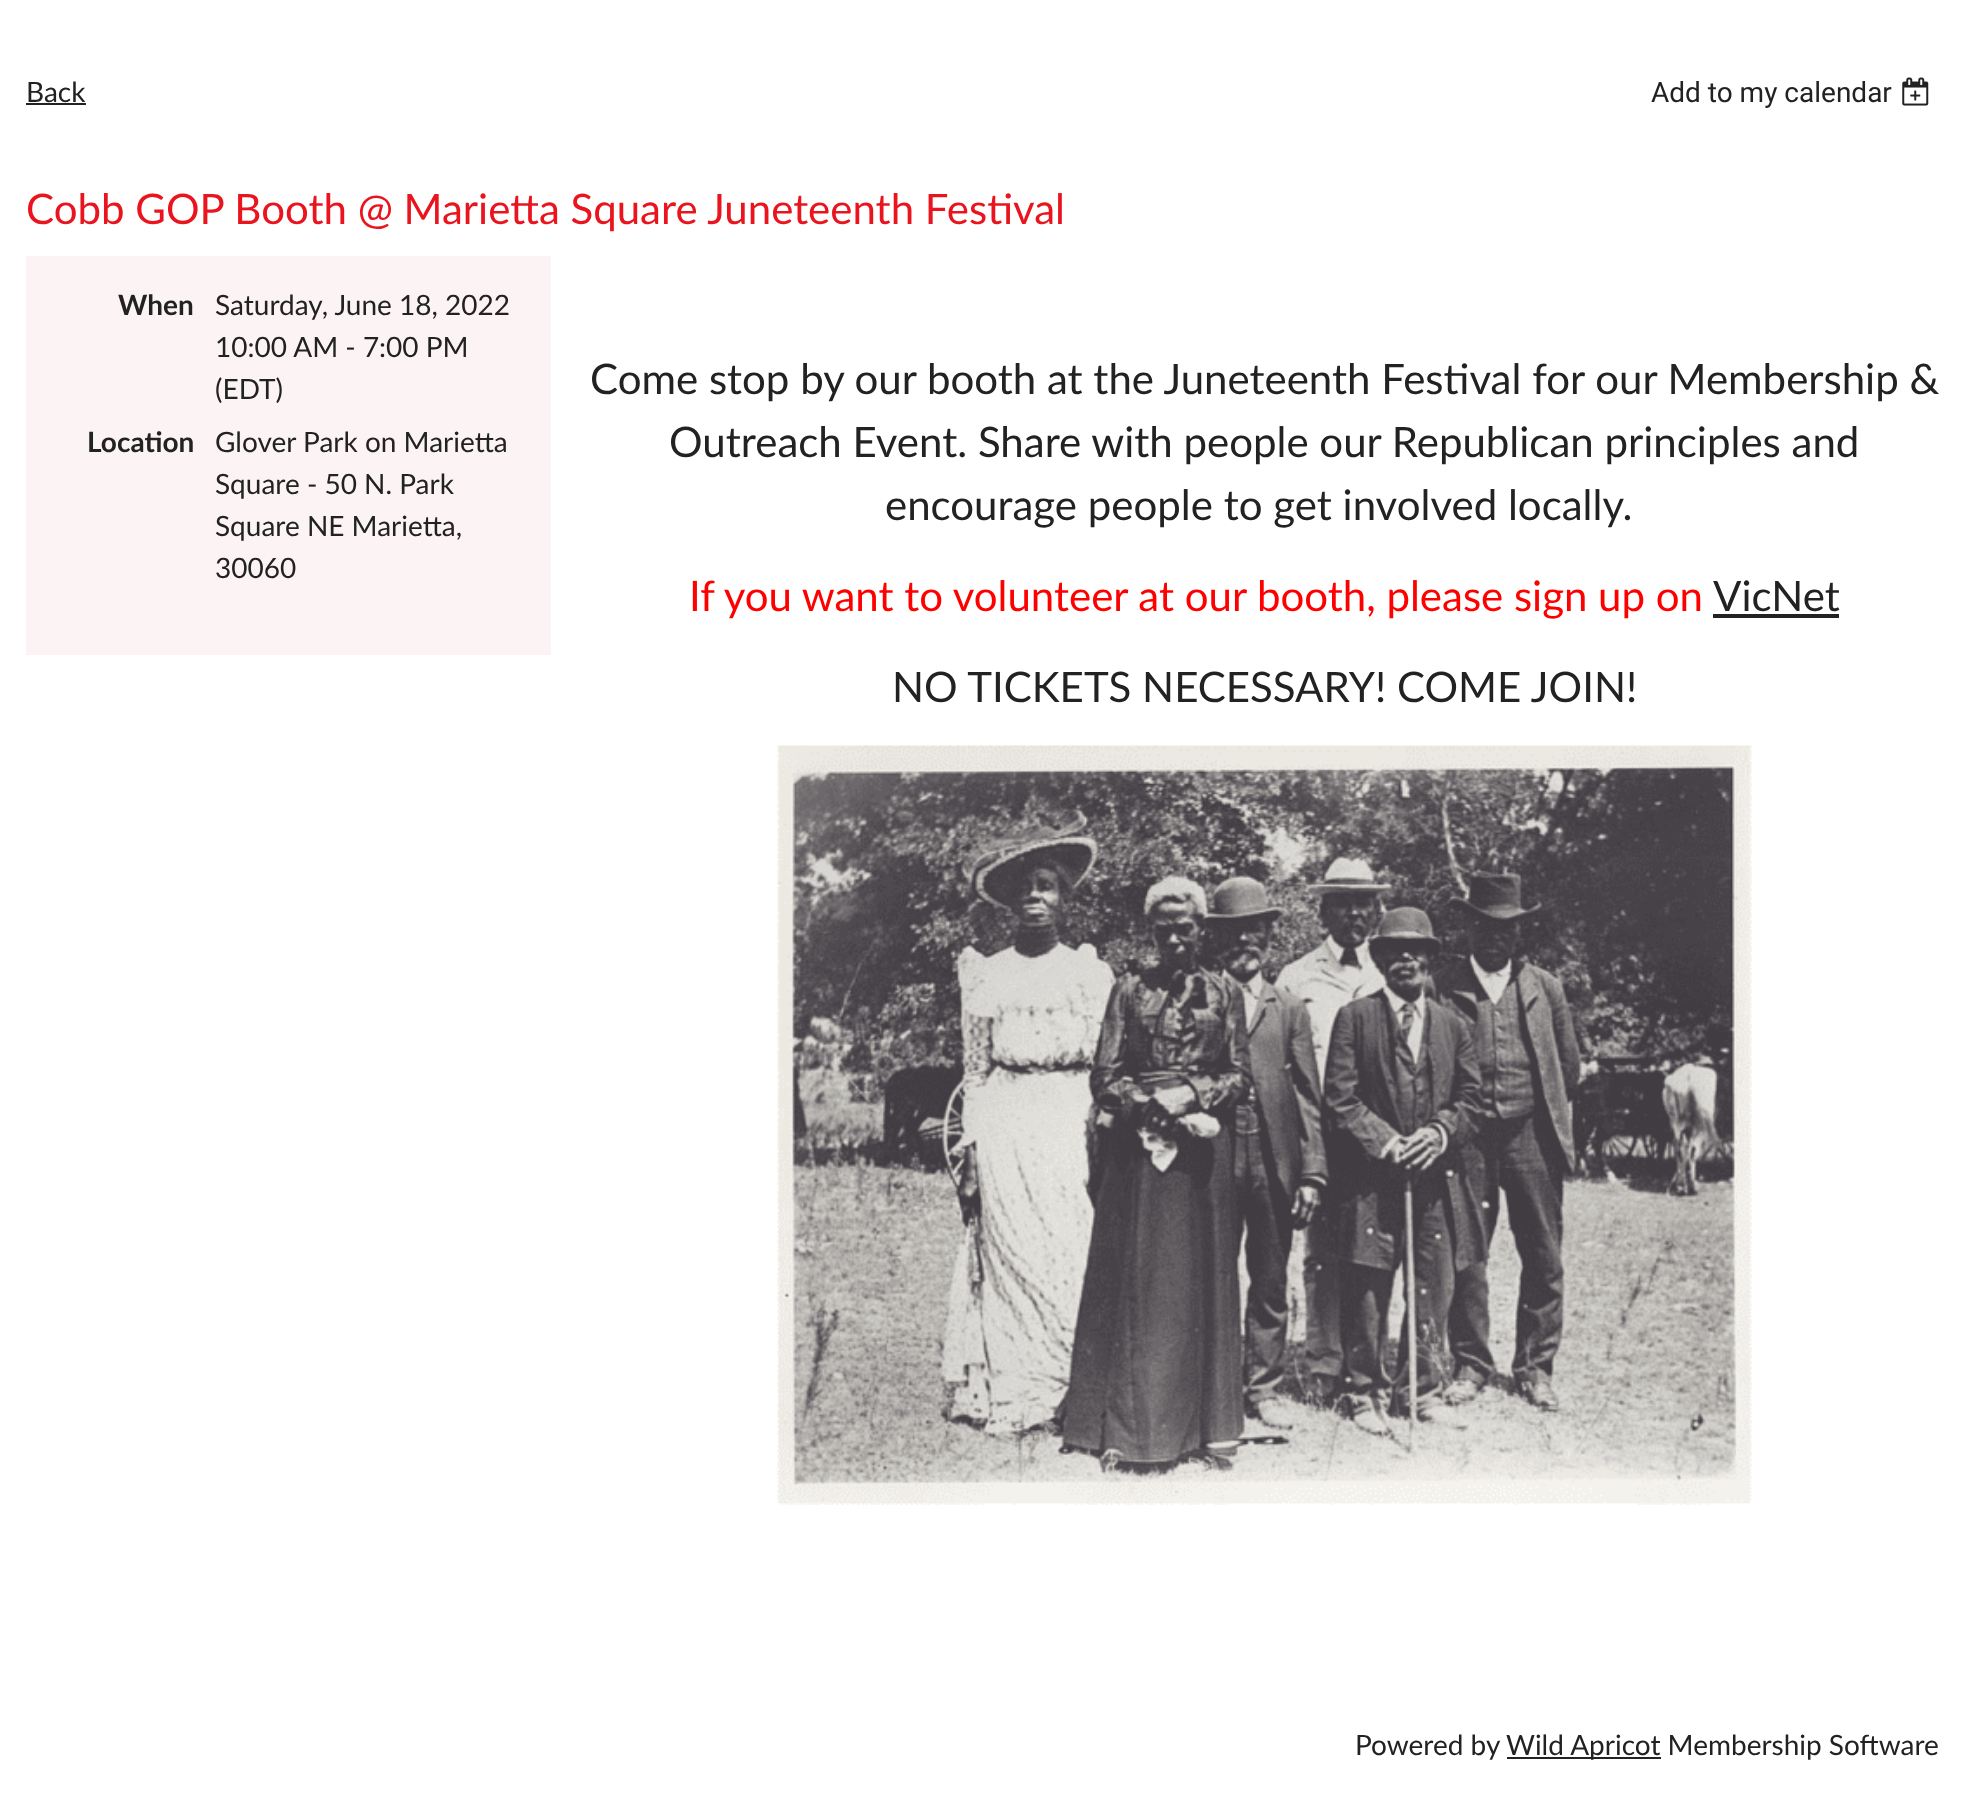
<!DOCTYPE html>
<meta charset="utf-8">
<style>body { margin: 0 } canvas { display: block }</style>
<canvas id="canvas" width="1964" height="1814"></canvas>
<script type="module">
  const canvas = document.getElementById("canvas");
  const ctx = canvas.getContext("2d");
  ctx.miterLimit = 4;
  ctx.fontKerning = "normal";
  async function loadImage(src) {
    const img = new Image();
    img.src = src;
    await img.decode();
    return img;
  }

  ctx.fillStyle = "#ffffff";
  ctx.fillRect(0, 0, 1964, 1814);
  ctx.font = "28px Lato";
  ctx.fillStyle = "#222222";
  ctx.fillText("Back", 26, 102);
  ctx.fillRect(26, 103, 60, 2);
  ctx.font = "28px Roboto";
  ctx.fillText("Add to my calendar", 1651, 102);
  ctx.drawImage(await loadImage("img1.png"), 1902, 77, 27, 29);
  ctx.font = "42px Lato";
  ctx.fillStyle = "#e9141d";
  ctx.fillText("Cobb GOP Booth @ Marietta Square Juneteenth Festival", 26, 224);
  ctx.fillStyle = "#fcf4f4";
  ctx.fillRect(26, 256, 525, 399);
  ctx.font = "bold 28px Lato";
  ctx.fillStyle = "#222222";
  ctx.fillText("When", 118, 315);
  ctx.font = "28px Lato";
  ctx.fillText("Saturday, June 18, 2022", 215, 315);
  ctx.fillText("10:00 AM - 7:00 PM", 215, 357);
  ctx.fillText("(EDT)", 215, 399);
  ctx.font = "bold 28px Lato";
  ctx.fillText("Location", 87, 452);
  ctx.font = "28px Lato";
  ctx.fillText("Glover Park on Marietta", 215, 452);
  ctx.fillText("Square - 50 N. Park", 215, 494);
  ctx.fillText("Square NE Marietta,", 215, 536);
  ctx.fillText("30060", 215, 578);
  ctx.font = "42px Lato";
  ctx.fillText("Come stop by our booth at the Juneteenth Festival for our Membership &", 590, 394);
  ctx.fillText("Outreach Event. Share with people our Republican principles and", 669, 457);
  ctx.fillText("encourage people to get involved locally.", 885, 520);
  ctx.wordSpacing = "-0.1px";
  ctx.fillStyle = "#ff0000";
  ctx.fillText("If you want to volunteer at our booth, please sign up on", 689, 611);
  ctx.wordSpacing = "0px";
  ctx.fillStyle = "#222222";
  ctx.fillText("VicNet", 1713, 611);
  ctx.fillRect(1713, 614, 126, 4);
  ctx.fillText("NO TICKETS NECESSARY! COME JOIN!", 892, 702);
  ctx.drawImage(await loadImage("img2.png"), 777, 745, 975, 760);
  ctx.font = "28px Lato";
  ctx.fillText("Powered by", 1355, 1755);
  ctx.fillRect(1507, 1757, 154, 2);
  ctx.fillText("Wild Apricot Membership Software", 1506, 1755);
</script>
